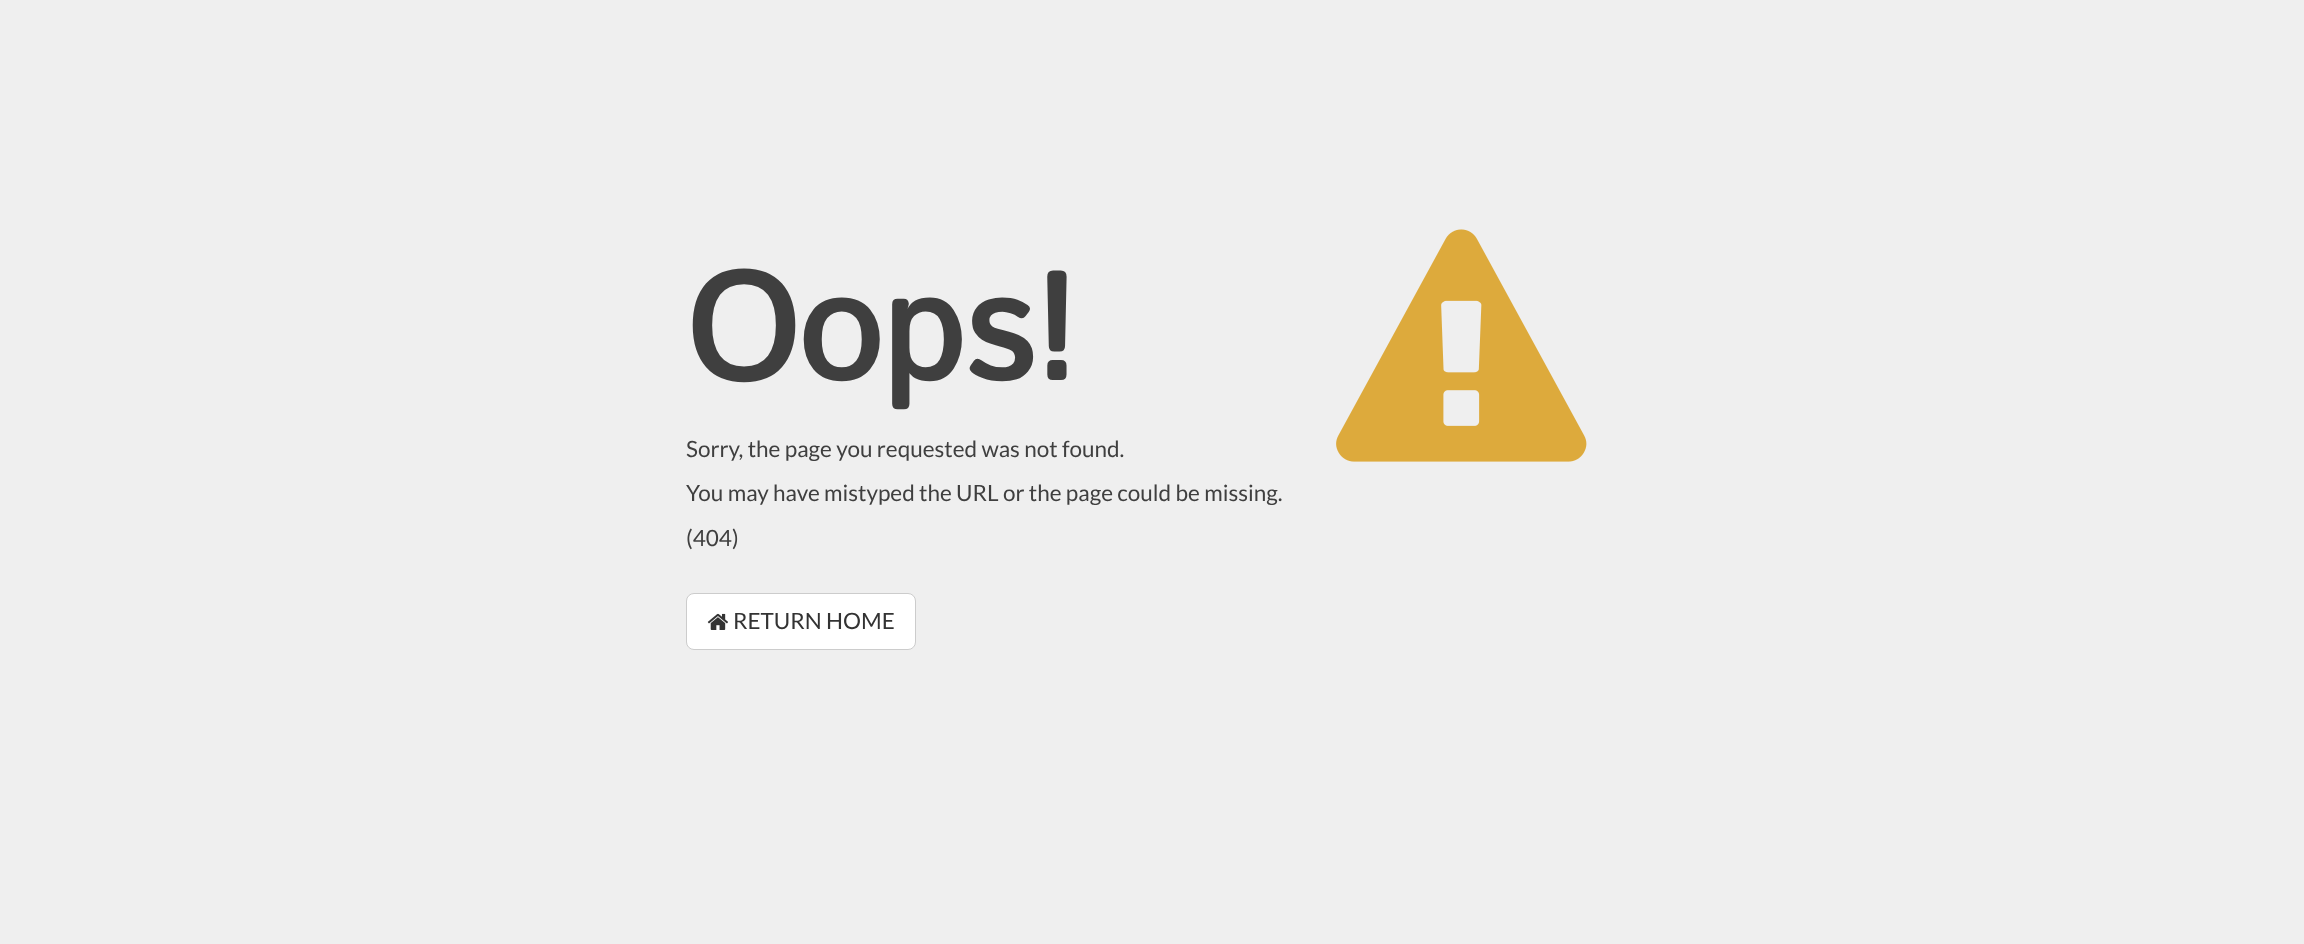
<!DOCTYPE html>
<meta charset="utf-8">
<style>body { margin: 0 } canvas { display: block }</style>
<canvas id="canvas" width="2304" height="944"></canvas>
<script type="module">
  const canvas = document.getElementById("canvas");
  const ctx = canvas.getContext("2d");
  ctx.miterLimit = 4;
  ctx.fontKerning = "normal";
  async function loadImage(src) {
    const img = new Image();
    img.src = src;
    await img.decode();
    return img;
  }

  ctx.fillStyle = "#efefef";
  ctx.fillRect(0, 0, 2304, 944);
  ctx.font = "bold 150px Istok Web";
  ctx.fillStyle = "#3f3f3f";
  ctx.fillText("Oops!", 686, 380);
  ctx.font = "22.5px Lato";
  ctx.fillText("Sorry, the page you requested was not found.", 686, 457);
  ctx.fillText("You may have mistyped the URL or the page could be missing.", 686, 501);
  ctx.fillText("(404)", 686, 546);
  ctx.fillStyle = "#ffffff";
  ctx.beginPath();
  ctx.roundRect(686.5, 593.5, 229, 56, 7.5);
  ctx.fill();
  ctx.strokeStyle = "#cccccc";
  ctx.stroke();
  ctx.drawImage(await loadImage("img1.png"), 707, 613, 21, 17);
  ctx.fillStyle = "#333333";
  ctx.fillText("RETURN HOME", 733, 629);
  ctx.drawImage(await loadImage("img2.png"), 1336, 229, 251, 233);
</script>
